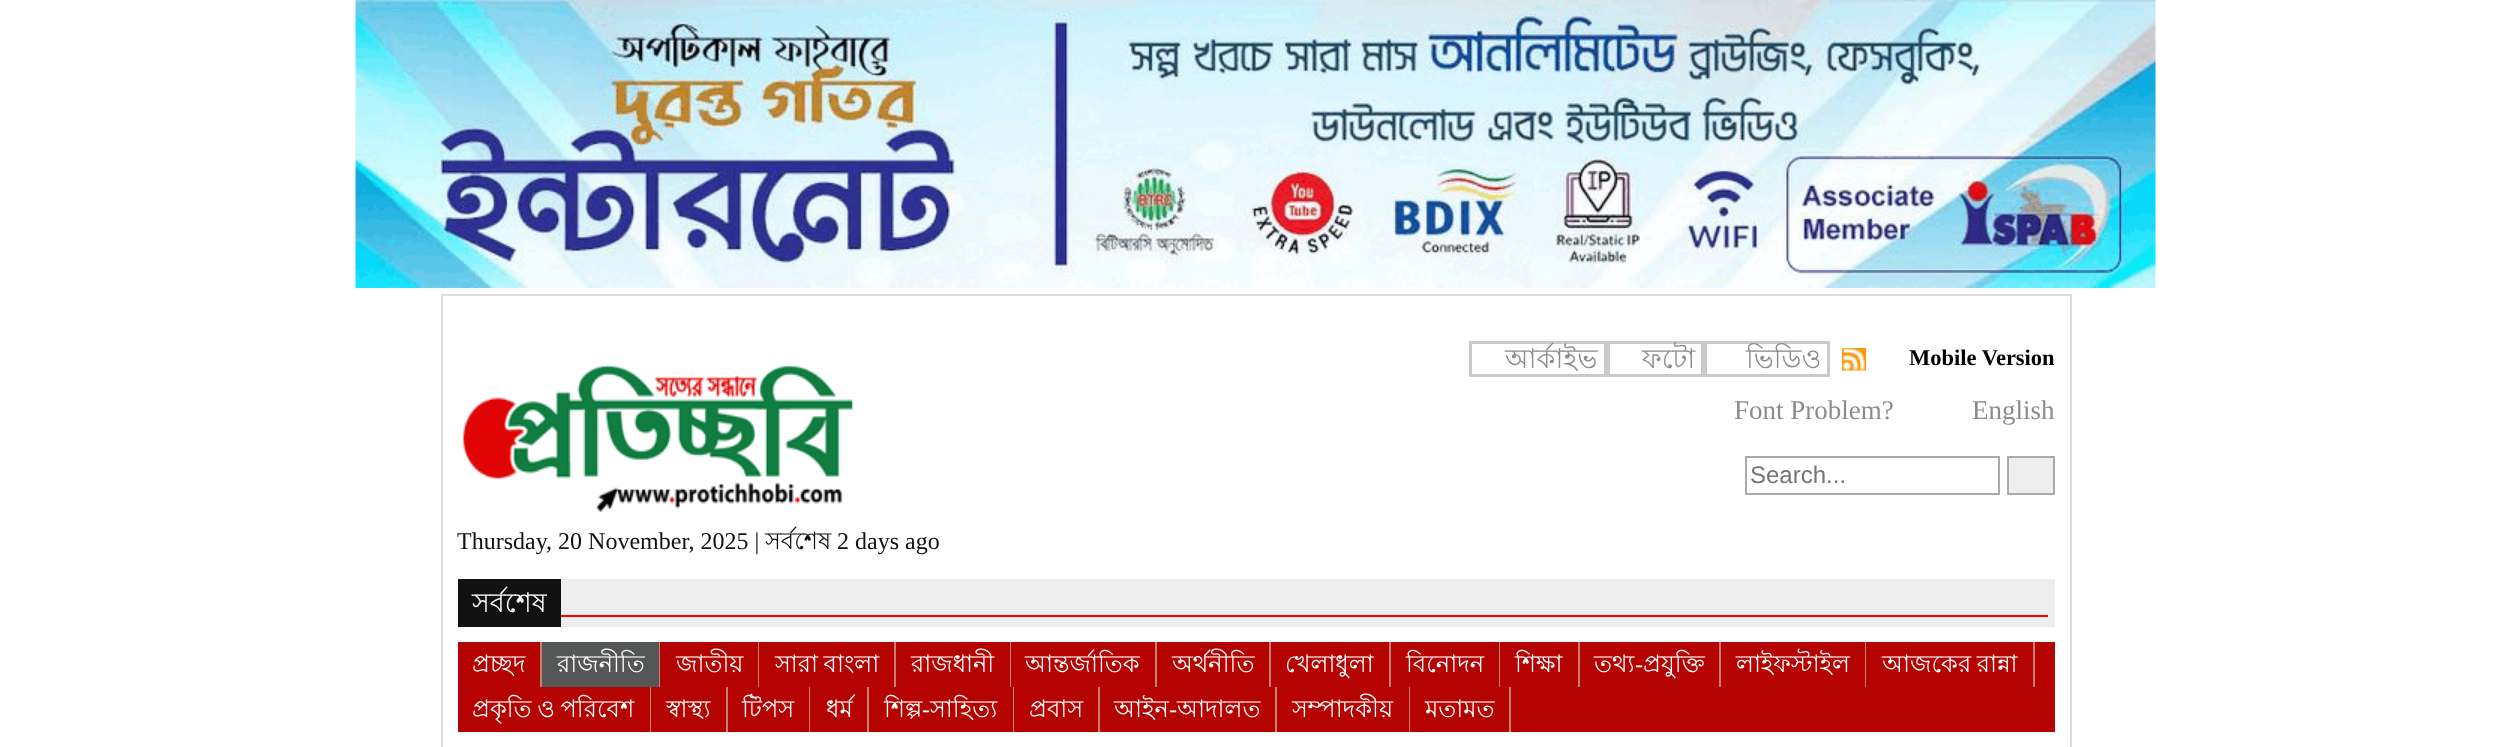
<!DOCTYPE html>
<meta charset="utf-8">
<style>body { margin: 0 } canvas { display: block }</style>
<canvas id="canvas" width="2510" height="747"></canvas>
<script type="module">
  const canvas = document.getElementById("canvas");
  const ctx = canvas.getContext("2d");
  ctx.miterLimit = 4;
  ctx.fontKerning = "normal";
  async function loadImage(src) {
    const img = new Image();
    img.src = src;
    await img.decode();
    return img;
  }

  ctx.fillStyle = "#ffffff";
  ctx.fillRect(0, 0, 2510, 747);
  ctx.drawImage(await loadImage("img1.png"), 355, 0, 1801, 288);
  ctx.strokeStyle = "#dddddd";
  ctx.lineWidth = 2;
  ctx.strokeRect(442, 295, 1629, 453);
  ctx.strokeStyle = "#cacaca";
  ctx.lineWidth = 3;
  ctx.strokeRect(1470.5, 342.5, 135, 33);
  ctx.font = "27px Lohit Bengali";
  ctx.fillStyle = "#8c8c8c";
  ctx.fillText("আর্কাইভ", 1505, 368);
  ctx.strokeRect(1608.5, 342.5, 94, 33);
  ctx.fillText("ফটো", 1642, 368);
  ctx.strokeRect(1705.5, 342.5, 123, 33);
  ctx.fillText("ভিডিও", 1746, 368);
  ctx.drawImage(await loadImage("img2.png"), 1842, 348, 24, 23);
  ctx.font = "bold 22.5px Liberation Serif";
  ctx.fillStyle = "#000000";
  ctx.fillText("Mobile Version", 1909, 365);
  ctx.font = "27px Liberation Serif";
  ctx.fillStyle = "#8c8c8c";
  ctx.fillText("Font Problem?", 1734, 419);
  ctx.fillText("English", 1972, 419);
  ctx.strokeStyle = "#aaaaaa";
  ctx.lineWidth = 2;
  ctx.strokeRect(1746, 457, 253, 37);
  ctx.font = "24px Liberation Sans";
  ctx.fillStyle = "#757575";
  ctx.fillText("Search...", 1750, 483);
  ctx.fillStyle = "#eeeeee";
  ctx.beginPath();
  ctx.rect(2008, 457, 46, 37);
  ctx.fill();
  ctx.stroke();
  ctx.drawImage(await loadImage("img3.png"), 463, 364, 391, 148);
  ctx.font = "24px Liberation Serif";
  ctx.fillStyle = "#111111";
  ctx.fillText("Thursday, 20 November, 2025 |", 457, 549);
  ctx.font = "24px Lohit Bengali";
  ctx.fillText("সর্বশেষ", 765, 549);
  ctx.font = "24px Liberation Serif";
  ctx.fillText("2 days ago", 837, 549);
  ctx.fillStyle = "#eeeeee";
  ctx.fillRect(561, 579, 1494, 48);
  ctx.fillStyle = "#111111";
  ctx.fillRect(458, 579, 103, 48);
  ctx.font = "27px Lohit Bengali";
  ctx.fillStyle = "#ffffff";
  ctx.fillText("সর্বশেষ", 472, 612);
  ctx.fillStyle = "#ff0000";
  ctx.fillRect(561, 615, 1487, 2);
  ctx.fillStyle = "#b50301";
  ctx.fillRect(458, 642, 1597, 90);
  ctx.fillStyle = "#c48073";
  ctx.fillRect(540, 642, 2, 45);
  ctx.font = "24px Lohit Bengali";
  ctx.fillStyle = "#ffffff";
  ctx.fillText("প্রচ্ছদ", 472, 672);
  ctx.fillStyle = "#555656";
  ctx.fillRect(542, 642, 117, 45);
  ctx.fillStyle = "#c48073";
  ctx.fillRect(659, 642, 1, 45);
  ctx.fillStyle = "#ffffff";
  ctx.fillText("রাজনীতি", 557, 672);
  ctx.fillStyle = "#c48073";
  ctx.fillRect(758, 642, 1, 45);
  ctx.fillStyle = "#ffffff";
  ctx.fillText("জাতীয়", 676, 672);
  ctx.fillStyle = "#c48073";
  ctx.fillRect(894, 642, 2, 45);
  ctx.wordSpacing = "-1px";
  ctx.fillStyle = "#ffffff";
  ctx.fillText("সারা বাংলা", 775, 672);
  ctx.fillStyle = "#c48073";
  ctx.fillRect(1010, 642, 1, 45);
  ctx.wordSpacing = "0px";
  ctx.fillStyle = "#ffffff";
  ctx.fillText("রাজধানী", 911, 672);
  ctx.fillStyle = "#c48073";
  ctx.fillRect(1155, 642, 2, 45);
  ctx.fillStyle = "#ffffff";
  ctx.fillText("আন্তর্জাতিক", 1025, 672);
  ctx.fillStyle = "#c48073";
  ctx.fillRect(1269, 642, 2, 45);
  ctx.fillStyle = "#ffffff";
  ctx.fillText("অর্থনীতি", 1172, 672);
  ctx.fillStyle = "#c48073";
  ctx.fillRect(1389, 642, 2, 45);
  ctx.fillStyle = "#ffffff";
  ctx.fillText("খেলাধুলা", 1285, 672);
  ctx.fillStyle = "#c48073";
  ctx.fillRect(1499, 642, 1, 45);
  ctx.fillStyle = "#ffffff";
  ctx.fillText("বিনোদন", 1406, 672);
  ctx.fillStyle = "#c48073";
  ctx.fillRect(1578, 642, 2, 45);
  ctx.fillStyle = "#ffffff";
  ctx.fillText("শিক্ষা", 1515, 672);
  ctx.fillStyle = "#c48073";
  ctx.fillRect(1719, 642, 2, 45);
  ctx.fillStyle = "#ffffff";
  ctx.fillText("তথ্য", 1594, 672);
  ctx.font = "24px Liberation Serif";
  ctx.fillText("-", 1635, 672);
  ctx.font = "24px Lohit Bengali";
  ctx.fillText("প্রযুক্তি", 1643, 672);
  ctx.fillStyle = "#c48073";
  ctx.fillRect(1865, 642, 1, 45);
  ctx.fillStyle = "#ffffff";
  ctx.fillText("লাইফস্টাইল", 1736, 672);
  ctx.fillStyle = "#c48073";
  ctx.fillRect(2033, 642, 2, 45);
  ctx.wordSpacing = "-1px";
  ctx.fillStyle = "#ffffff";
  ctx.fillText("আজকের রান্না", 1882, 672);
  ctx.fillStyle = "#c48073";
  ctx.fillRect(650, 687, 1, 45);
  ctx.fillStyle = "#ffffff";
  ctx.fillText("প্রকৃতি ও পরিবেশ", 472, 717);
  ctx.fillStyle = "#c48073";
  ctx.fillRect(726, 687, 2, 45);
  ctx.wordSpacing = "0px";
  ctx.fillStyle = "#ffffff";
  ctx.fillText("স্বাস্থ্য", 666, 717);
  ctx.fillStyle = "#c48073";
  ctx.fillRect(809, 687, 1, 45);
  ctx.fillStyle = "#ffffff";
  ctx.fillText("টিপস", 742, 717);
  ctx.fillStyle = "#c48073";
  ctx.fillRect(867, 687, 2, 45);
  ctx.fillStyle = "#ffffff";
  ctx.fillText("ধর্ম", 826, 717);
  ctx.fillStyle = "#c48073";
  ctx.fillRect(1013, 687, 1, 45);
  ctx.fillStyle = "#ffffff";
  ctx.fillText("শিল্প", 884, 717);
  ctx.font = "24px Liberation Serif";
  ctx.fillText("-", 922, 717);
  ctx.font = "24px Lohit Bengali";
  ctx.fillText("সাহিত্য", 930, 717);
  ctx.fillStyle = "#c48073";
  ctx.fillRect(1098, 687, 2, 45);
  ctx.fillStyle = "#ffffff";
  ctx.fillText("প্রবাস", 1029, 717);
  ctx.fillStyle = "#c48073";
  ctx.fillRect(1275, 687, 2, 45);
  ctx.fillStyle = "#ffffff";
  ctx.fillText("আইন", 1114, 717);
  ctx.font = "24px Liberation Serif";
  ctx.fillText("-", 1169, 717);
  ctx.font = "24px Lohit Bengali";
  ctx.fillText("আদালত", 1177, 717);
  ctx.fillStyle = "#c48073";
  ctx.fillRect(1409, 687, 1, 45);
  ctx.fillStyle = "#ffffff";
  ctx.fillText("সম্পাদকীয়", 1292, 717);
  ctx.fillStyle = "#c48073";
  ctx.fillRect(1509, 687, 2, 45);
  ctx.fillStyle = "#ffffff";
  ctx.fillText("মতামত", 1425, 717);
</script>
